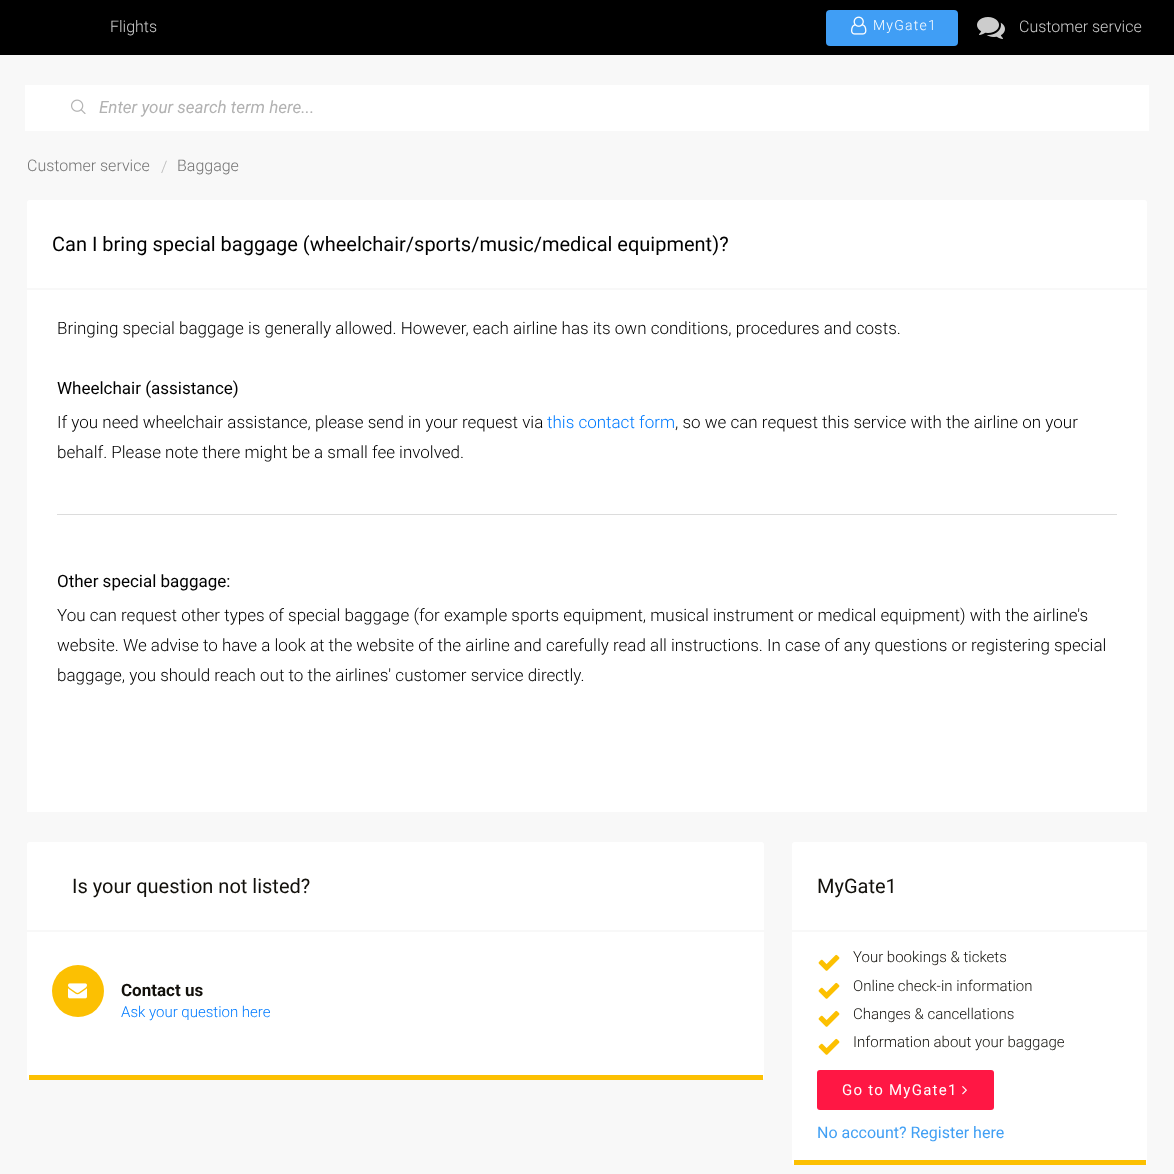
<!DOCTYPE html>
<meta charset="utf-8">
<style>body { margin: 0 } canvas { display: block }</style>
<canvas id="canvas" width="1174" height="1174"></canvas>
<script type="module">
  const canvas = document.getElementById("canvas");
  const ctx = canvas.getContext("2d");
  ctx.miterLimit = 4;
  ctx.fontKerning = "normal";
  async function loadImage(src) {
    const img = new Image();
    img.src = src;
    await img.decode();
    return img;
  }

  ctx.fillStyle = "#f8f8f8";
  ctx.fillRect(0, 0, 1174, 1174);
  ctx.fillStyle = "#000000";
  ctx.fillRect(0, 0, 1174, 55);
  ctx.font = "300 16px Roboto";
  ctx.fillStyle = "#cccccc";
  ctx.fillText("Flights", 110, 32);
  ctx.fillStyle = "#409ef5";
  ctx.beginPath();
  ctx.roundRect(826, 10, 132, 36, 4);
  ctx.fill();
  ctx.drawImage(await loadImage("img1.png"), 851, 16, 16, 19);
  ctx.letterSpacing = "1.25px";
  ctx.font = "300 14px Roboto";
  ctx.fillStyle = "#ffffff";
  ctx.fillText("MyGate1", 873, 30);
  ctx.drawImage(await loadImage("img2.png"), 977, 17, 28, 22);
  ctx.letterSpacing = "0px";
  ctx.font = "300 16px Roboto";
  ctx.fillStyle = "#cccccc";
  ctx.fillText("Customer service", 1019, 32);
  ctx.fillStyle = "#ffffff";
  ctx.fillRect(25, 85, 1124, 46);
  ctx.drawImage(await loadImage("img3.png"), 71, 99, 15, 15);
  ctx.font = "italic 17px Roboto";
  ctx.fillStyle = "#b2b2b2";
  ctx.fillText("Enter your search term here...", 99, 113);
  ctx.font = "300 16px Roboto";
  ctx.fillStyle = "#747474";
  ctx.fillText("Customer service", 27, 171);
  ctx.fillStyle = "#bbbbbb";
  ctx.fillText("/", 161, 172);
  ctx.fillStyle = "#747474";
  ctx.fillText("Baggage", 177, 171);
  ctx.fillStyle = "#ffffff";
  ctx.beginPath();
  ctx.roundRect(27, 200, 1120, 90, [3, 3, 0, 0]);
  ctx.fill();
  ctx.fillStyle = "#f8f8f8";
  ctx.fillRect(27, 288, 1120, 2);
  ctx.font = "20px Roboto";
  ctx.fillStyle = "#000000";
  ctx.fillText("Can I bring special baggage (wheelchair/sports/music/medical equipment)?", 52, 251);
  ctx.fillStyle = "#ffffff";
  ctx.fillRect(27, 290, 1120, 522);
  ctx.font = "300 17px Roboto";
  ctx.fillStyle = "#000000";
  ctx.fillText("Bringing special baggage is generally allowed. However, each airline has its own conditions, procedures and costs.", 57, 334);
  ctx.font = "17px Roboto";
  ctx.fillText("Wheelchair (assistance)", 57, 394);
  ctx.font = "300 17px Roboto";
  ctx.fillText("If you need wheelchair assistance, please send in your request via", 57, 428);
  ctx.fillStyle = "#007bff";
  ctx.fillText("this contact form", 547, 428);
  ctx.fillStyle = "#000000";
  ctx.fillText(", so we can request this service with the airline on your", 675, 428);
  ctx.fillText("behalf. Please note there might be a small fee involved.", 57, 458);
  ctx.fillStyle = "#dcdcdc";
  ctx.fillRect(57, 514, 1060, 1);
  ctx.font = "17px Roboto";
  ctx.fillStyle = "#000000";
  ctx.fillText("Other special baggage:", 57, 587);
  ctx.font = "300 17px Roboto";
  ctx.fillText("You can request other types of special baggage (for example sports equipment, musical instrument or medical equipment) with the airline's", 57, 621);
  ctx.fillText("website. We advise to have a look at the website of the airline and carefully read all instructions. In case of any questions or registering special", 57, 651);
  ctx.fillText("baggage, you should reach out to the airlines' customer service directly.", 57, 681);
  ctx.fillStyle = "#ffffff";
  ctx.beginPath();
  ctx.roundRect(27, 842, 737, 238, 3);
  ctx.fill();
  ctx.fillStyle = "#fcc002";
  ctx.fillRect(29, 1075, 734, 5);
  ctx.fillStyle = "#f8f8f8";
  ctx.fillRect(27, 930, 737, 2);
  ctx.font = "20px Roboto";
  ctx.fillStyle = "#12100b";
  ctx.fillText("Is your question not listed?", 72, 893);
  ctx.fillStyle = "#fcc002";
  ctx.beginPath();
  ctx.arc(78, 991, 26, 0, Math.PI * 2);
  ctx.fill();
  ctx.drawImage(await loadImage("img4.png"), 68, 983, 19, 16);
  ctx.font = "bold 17px Roboto";
  ctx.fillStyle = "#12100b";
  ctx.fillText("Contact us", 121, 996);
  ctx.font = "300 15px Roboto";
  ctx.fillStyle = "#007bff";
  ctx.fillText("Ask your question here", 121, 1017);
  ctx.fillStyle = "#ffffff";
  ctx.beginPath();
  ctx.roundRect(792, 842, 355, 323, 3);
  ctx.fill();
  ctx.fillStyle = "#fcc002";
  ctx.fillRect(794, 1160, 352, 5);
  ctx.fillStyle = "#f8f8f8";
  ctx.fillRect(792, 930, 355, 2);
  ctx.font = "20px Roboto";
  ctx.fillStyle = "#12100b";
  ctx.fillText("MyGate1", 817, 893);
  ctx.drawImage(await loadImage("img5.png"), 818, 954, 22, 17);
  ctx.font = "300 15px Roboto";
  ctx.fillText("Your bookings & tickets", 853, 962);
  ctx.drawImage(await loadImage("img5.png"), 818, 982, 22, 17);
  ctx.fillText("Online check-in information", 853, 991);
  ctx.drawImage(await loadImage("img5.png"), 818, 1010, 22, 17);
  ctx.fillText("Changes & cancellations", 853, 1019);
  ctx.drawImage(await loadImage("img5.png"), 818, 1038, 22, 17);
  ctx.fillText("Information about your baggage", 853, 1047);
  ctx.fillStyle = "#ff1744";
  ctx.beginPath();
  ctx.roundRect(817, 1070, 177, 40, 3);
  ctx.fill();
  ctx.letterSpacing = "1.25px";
  ctx.font = "15px Roboto";
  ctx.fillStyle = "#ffffff";
  ctx.fillText("Go to MyGate1", 842, 1095);
  ctx.drawImage(await loadImage("img6.png"), 962, 1086, 5, 9);
  ctx.letterSpacing = "0px";
  ctx.font = "16px Roboto";
  ctx.fillStyle = "#409ff4";
  ctx.fillText("No account? Register here", 817, 1138);
</script>
